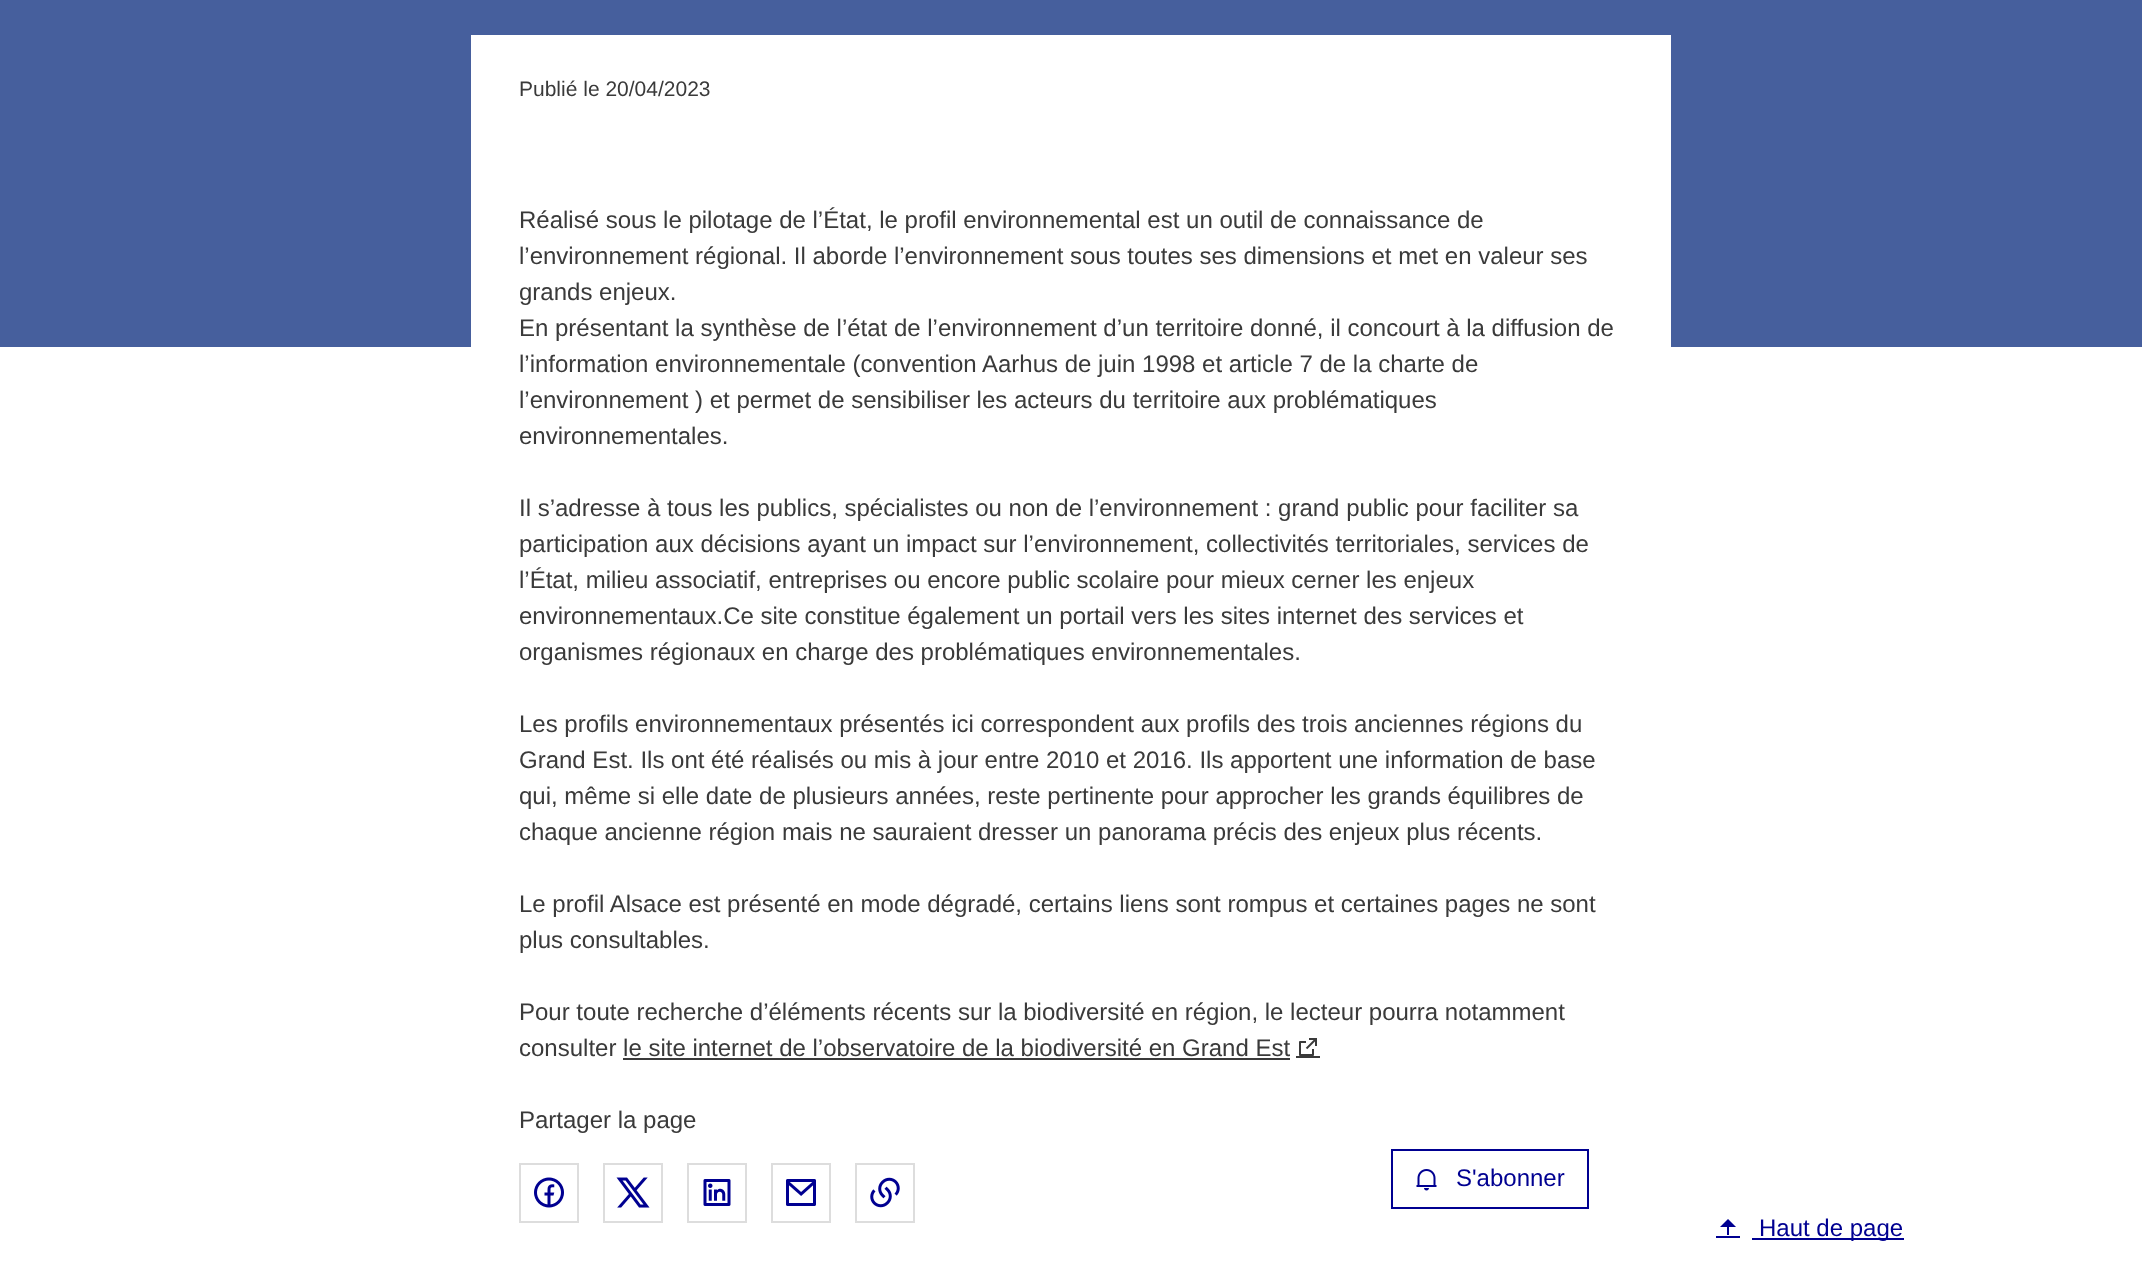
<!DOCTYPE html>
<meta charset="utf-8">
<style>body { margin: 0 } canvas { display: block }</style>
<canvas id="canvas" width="2142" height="1285"></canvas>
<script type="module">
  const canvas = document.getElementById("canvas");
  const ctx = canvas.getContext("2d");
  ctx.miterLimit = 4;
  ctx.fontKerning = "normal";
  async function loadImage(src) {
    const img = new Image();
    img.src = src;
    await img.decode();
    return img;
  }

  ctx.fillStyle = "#ffffff";
  ctx.fillRect(0, 0, 2142, 1285);
  ctx.fillStyle = "#465f9d";
  ctx.fillRect(0, 0, 2142, 347);
  ctx.fillStyle = "#ffffff";
  ctx.fillRect(471, 35, 1200, 312);
  ctx.font = "21px Liberation Sans";
  ctx.fillStyle = "#3a3a3a";
  ctx.fillText("Publié le 20/04/2023", 519, 96);
  ctx.font = "24px Liberation Sans";
  ctx.fillText("Réalisé sous le pilotage de l’État, le profil environnemental est un outil de connaissance de", 519, 228);
  ctx.fillText("l’environnement régional. Il aborde l’environnement sous toutes ses dimensions et met en valeur ses", 519, 264);
  ctx.fillText("grands enjeux.", 519, 300);
  ctx.fillText("En présentant la synthèse de l’état de l’environnement d’un territoire donné, il concourt à la diffusion de", 519, 336);
  ctx.fillText("l’information environnementale (convention Aarhus de juin 1998 et article 7 de la charte de", 519, 372);
  ctx.fillText("l’environnement ) et permet de sensibiliser les acteurs du territoire aux problématiques", 519, 408);
  ctx.fillText("environnementales.", 519, 444);
  ctx.fillText("Il s’adresse à tous les publics, spécialistes ou non de l’environnement : grand public pour faciliter sa", 519, 516);
  ctx.fillText("participation aux décisions ayant un impact sur l’environnement, collectivités territoriales, services de", 519, 552);
  ctx.fillText("l’État, milieu associatif, entreprises ou encore public scolaire pour mieux cerner les enjeux", 519, 588);
  ctx.fillText("environnementaux.Ce site constitue également un portail vers les sites internet des services et", 519, 624);
  ctx.fillText("organismes régionaux en charge des problématiques environnementales.", 519, 660);
  ctx.fillText("Les profils environnementaux présentés ici correspondent aux profils des trois anciennes régions du", 519, 732);
  ctx.fillText("Grand Est. Ils ont été réalisés ou mis à jour entre 2010 et 2016. Ils apportent une information de base", 519, 768);
  ctx.fillText("qui, même si elle date de plusieurs années, reste pertinente pour approcher les grands équilibres de", 519, 804);
  ctx.fillText("chaque ancienne région mais ne sauraient dresser un panorama précis des enjeux plus récents.", 519, 840);
  ctx.fillText("Le profil Alsace est présenté en mode dégradé, certains liens sont rompus et certaines pages ne sont", 519, 912);
  ctx.fillText("plus consultables.", 519, 948);
  ctx.fillText("Pour toute recherche d’éléments récents sur la biodiversité en région, le lecteur pourra notamment", 519, 1020);
  ctx.fillText("consulter le site internet de l’observatoire de la biodiversité en Grand Est", 519, 1056);
  ctx.fillRect(623, 1058, 667, 2);
  ctx.fillRect(1296, 1056, 24, 2);
  ctx.drawImage(await loadImage("img1.png"), 1299, 1038, 18, 18);
  ctx.fillText("Partager la page", 519, 1128);
  ctx.strokeStyle = "#dddddd";
  ctx.lineWidth = 2;
  ctx.strokeRect(520, 1164, 58, 58);
  ctx.drawImage(await loadImage("img2.png"), 534, 1177, 30, 31);
  ctx.strokeRect(604, 1164, 58, 58);
  ctx.drawImage(await loadImage("img3.png"), 616, 1177, 34, 31);
  ctx.strokeRect(688, 1164, 58, 58);
  ctx.drawImage(await loadImage("img4.png"), 703, 1179, 28, 27);
  ctx.strokeRect(772, 1164, 58, 58);
  ctx.drawImage(await loadImage("img5.png"), 786, 1179, 30, 27);
  ctx.strokeRect(856, 1164, 58, 58);
  ctx.drawImage(await loadImage("img6.png"), 870, 1177, 30, 31);
  ctx.strokeStyle = "#000091";
  ctx.strokeRect(1392, 1150, 196, 58);
  ctx.drawImage(await loadImage("img7.png"), 1416, 1169, 21, 22);
  ctx.fillStyle = "#000091";
  ctx.fillText("S'abonner", 1456, 1186);
  ctx.fillRect(1716, 1236, 24, 2);
  ctx.fillRect(1752, 1238, 152, 2);
  ctx.drawImage(await loadImage("img8.png"), 1720, 1219, 16, 16);
  ctx.fillText("Haut de page", 1759, 1236);
</script>
